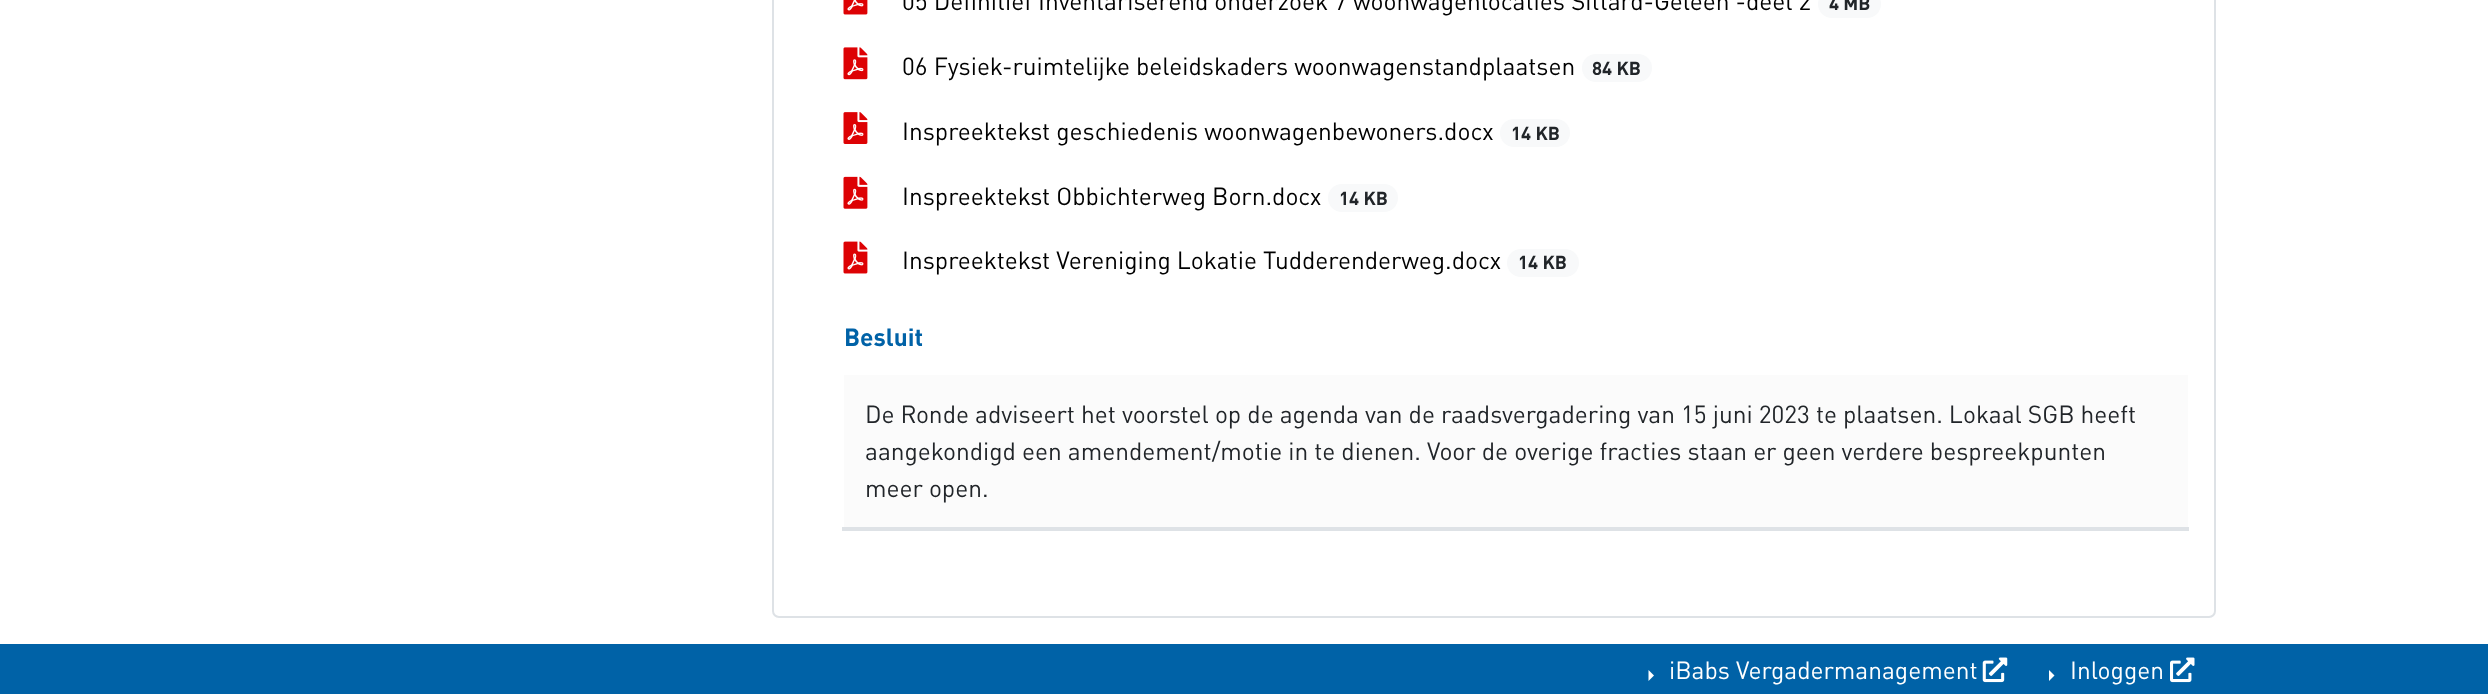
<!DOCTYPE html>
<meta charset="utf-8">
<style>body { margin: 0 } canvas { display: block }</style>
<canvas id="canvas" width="2488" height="694"></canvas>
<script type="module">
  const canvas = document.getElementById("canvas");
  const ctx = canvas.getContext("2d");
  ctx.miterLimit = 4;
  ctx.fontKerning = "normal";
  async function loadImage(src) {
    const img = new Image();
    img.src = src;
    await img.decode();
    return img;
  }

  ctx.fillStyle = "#ffffff";
  ctx.fillRect(0, 0, 2488, 694);
  ctx.beginPath();
  ctx.roundRect(773, -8, 1442, 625, 6);
  ctx.strokeStyle = "#dee2e6";
  ctx.lineWidth = 2;
  ctx.stroke();
  ctx.drawImage(await loadImage("img1.png"), 843, 0, 25, 15);
  ctx.font = "24.5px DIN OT";
  ctx.fillStyle = "#000000";
  ctx.fillText("05 Definitief Inventariserend onderzoek 7 woonwagenlocaties Sittard-Geleen -deel 2", 902, 10);
  ctx.fillStyle = "#f8f9fa";
  ctx.beginPath();
  ctx.roundRect(1818, -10, 63, 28, 14);
  ctx.fill();
  ctx.font = "bold 18.5px DINOT";
  ctx.fillStyle = "#212529";
  ctx.fillText("4 MB", 1829, 10);
  ctx.drawImage(await loadImage("img2.png"), 843, 47, 25, 33);
  ctx.font = "24.5px DIN OT";
  ctx.fillStyle = "#000000";
  ctx.fillText("06 Fysiek-ruimtelijke beleidskaders woonwagenstandplaatsen", 902, 75);
  ctx.fillStyle = "#f8f9fa";
  ctx.beginPath();
  ctx.roundRect(1582, 54, 70, 28, 14);
  ctx.fill();
  ctx.font = "bold 18.5px DINOT";
  ctx.fillStyle = "#212529";
  ctx.fillText("84 KB", 1592, 75);
  ctx.drawImage(await loadImage("img3.png"), 843, 112, 25, 32);
  ctx.font = "24.5px DIN OT";
  ctx.fillStyle = "#000000";
  ctx.fillText("Inspreektekst geschiedenis woonwagenbewoners.docx", 902, 140);
  ctx.fillStyle = "#f8f9fa";
  ctx.beginPath();
  ctx.roundRect(1500, 119, 70, 28, 14);
  ctx.fill();
  ctx.font = "bold 18.5px DINOT";
  ctx.fillStyle = "#212529";
  ctx.fillText("14 KB", 1511, 140);
  ctx.drawImage(await loadImage("img4.png"), 843, 176, 25, 33);
  ctx.font = "24.5px DIN OT";
  ctx.fillStyle = "#000000";
  ctx.fillText("Inspreektekst Obbichterweg Born.docx", 902, 205);
  ctx.fillStyle = "#f8f9fa";
  ctx.beginPath();
  ctx.roundRect(1328, 184, 70, 28, 14);
  ctx.fill();
  ctx.font = "bold 18.5px DINOT";
  ctx.fillStyle = "#212529";
  ctx.fillText("14 KB", 1339, 205);
  ctx.drawImage(await loadImage("img5.png"), 843, 241, 25, 33);
  ctx.font = "24.5px DIN OT";
  ctx.fillStyle = "#000000";
  ctx.fillText("Inspreektekst Vereniging Lokatie Tudderenderweg.docx", 902, 269);
  ctx.fillStyle = "#f8f9fa";
  ctx.beginPath();
  ctx.roundRect(1507, 249, 72, 28, 14);
  ctx.fill();
  ctx.font = "bold 18.5px DINOT";
  ctx.fillStyle = "#212529";
  ctx.fillText("14 KB", 1518, 269);
  ctx.font = "bold 24.5px DINOT";
  ctx.fillStyle = "#0062a7";
  ctx.fillText("Besluit", 844, 346);
  ctx.fillStyle = "#fbfbfb";
  ctx.fillRect(844, 375, 1344, 152);
  ctx.fillStyle = "#dee2e6";
  ctx.fillRect(842, 527, 1347, 4);
  ctx.font = "24.5px DIN OT";
  ctx.fillStyle = "#212529";
  ctx.fillText("De Ronde adviseert het voorstel op de agenda van de raadsvergadering van 15 juni 2023 te plaatsen. Lokaal SGB heeft", 865, 423);
  ctx.fillText("aangekondigd een amendement/motie in te dienen. Voor de overige fracties staan er geen verdere bespreekpunten", 865, 460);
  ctx.fillText("meer open.", 865, 497);
  ctx.fillStyle = "#0062a7";
  ctx.fillRect(0, 644, 2488, 50);
  ctx.fillStyle = "#ffffff";
  ctx.beginPath();
  ctx.moveTo(1648.5, 681);
  ctx.lineTo(1648.5, 670);
  ctx.lineTo(1654, 675.5);
  ctx.closePath();
  ctx.fill();
  ctx.fillText("iBabs Vergadermanagement", 1669, 679);
  ctx.drawImage(await loadImage("img6.png"), 1982, 657, 26, 26);
  ctx.beginPath();
  ctx.moveTo(2049, 681);
  ctx.lineTo(2049, 670);
  ctx.lineTo(2054.5, 675.5);
  ctx.closePath();
  ctx.fill();
  ctx.fillText("Inloggen", 2070, 679);
  ctx.drawImage(await loadImage("img7.png"), 2170, 657, 25, 26);
</script>
